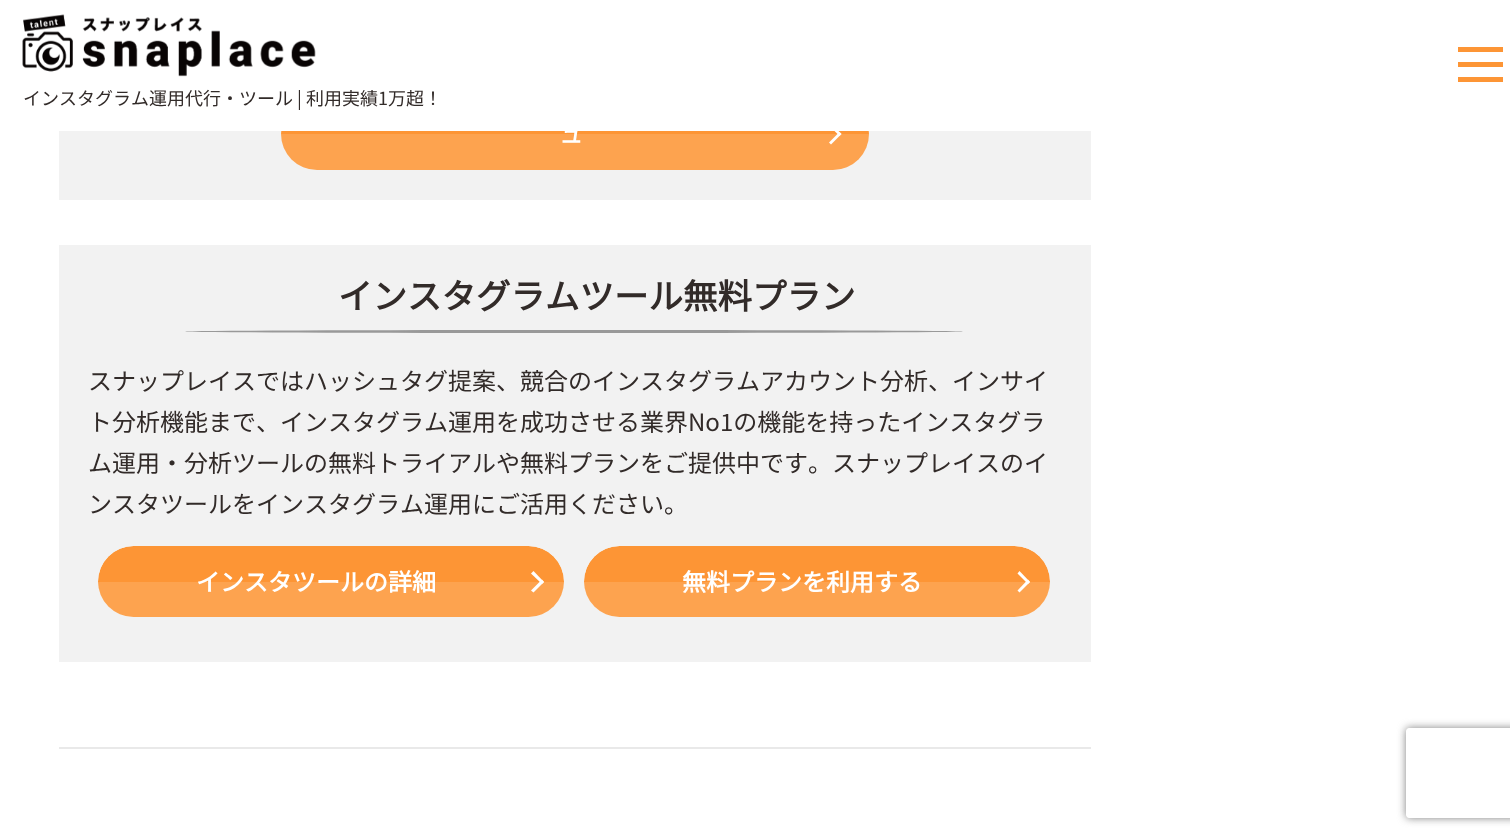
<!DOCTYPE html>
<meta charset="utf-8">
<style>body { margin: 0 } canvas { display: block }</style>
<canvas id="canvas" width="1510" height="838"></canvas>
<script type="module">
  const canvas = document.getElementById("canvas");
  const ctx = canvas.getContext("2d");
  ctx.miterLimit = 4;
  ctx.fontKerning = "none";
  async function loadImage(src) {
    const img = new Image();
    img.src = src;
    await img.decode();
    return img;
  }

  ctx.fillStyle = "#ffffff";
  ctx.fillRect(0, 0, 1510, 838);
  ctx.fillStyle = "#f2f2f2";
  ctx.fillRect(59, 131, 1032, 69);
  ctx.fillStyle = "#fd9535";
  ctx.beginPath();
  ctx.roundRect(281, 98, 588, 36, [36, 36, 0, 0]);
  ctx.fill();
  ctx.fillStyle = "#fda34f";
  ctx.beginPath();
  ctx.roundRect(281, 134, 588, 36, [0, 0, 36, 36]);
  ctx.fill();
  ctx.fillStyle = "#ffffff";
  ctx.beginPath();
  ctx.moveTo(831, 123.5);
  ctx.lineTo(841.5, 134);
  ctx.lineTo(839.5, 136);
  ctx.lineTo(829, 125.5);
  ctx.closePath();
  ctx.fill();
  ctx.fillRect(281, 98, 588, 33);
  ctx.fillStyle = "#fd9535";
  ctx.fillRect(1458, 62, 45, 5);
  ctx.fillRect(1458, 47, 45, 5);
  ctx.fillRect(1458, 77, 45, 5);
  ctx.drawImage(await loadImage("img1.png"), 22, 14, 294, 63);
  ctx.font = "100 18px Noto Sans JP";
  ctx.fillStyle = "#322b29";
  ctx.fillText("インスタグラム運用代行・ツール | 利用実績1万超！", 23, 105);
  ctx.font = "bold 24px Noto Sans JP";
  ctx.fillStyle = "#ffffff";
  ctx.fillText("ュ", 559, 143);
  ctx.beginPath();
  ctx.moveTo(839.5, 132);
  ctx.lineTo(841.5, 134);
  ctx.lineTo(831, 144.5);
  ctx.lineTo(829, 142.5);
  ctx.closePath();
  ctx.fill();
  ctx.fillStyle = "#f2f2f2";
  ctx.fillRect(59, 245, 1032, 417);
  ctx.font = "bold 34.5px Noto Sans JP";
  ctx.fillStyle = "#322b29";
  ctx.fillText("インスタグラムツール無料プラン", 338, 309);
  ctx.fillStyle = "#999999";
  ctx.beginPath();
  ctx.ellipse(574, 331.5, 389, 1.5, 0, 0, Math.PI * 2);
  ctx.fill();
  ctx.font = "100 24px Noto Sans JP";
  ctx.fillStyle = "#322b29";
  ctx.fillText("スナップレイスではハッシュタグ提案、競合のインスタグラムアカウント分析、インサイ", 88, 390);
  ctx.fillText("ト分析機能まで、インスタグラム運用を成功させる業界No1の機能を持ったインスタグラ", 88, 431);
  ctx.fillText("ム運用・分析ツールの無料トライアルや無料プランをご提供中です。スナップレイスのイ", 88, 472);
  ctx.fillText("ンスタツールをインスタグラム運用にご活用ください。", 88, 513);
  ctx.save();
  ctx.beginPath();
  ctx.roundRect(98, 546, 466, 71, 35.5);
  ctx.clip();
  ctx.fillStyle = "#fd9535";
  ctx.beginPath();
  ctx.roundRect(98, 546, 466, 36, [35.5, 35.5, 0, 0]);
  ctx.fill();
  ctx.fillStyle = "#fda34f";
  ctx.fillRect(98, 582, 466, 35);
  ctx.restore();
  ctx.font = "bold 24px Noto Sans JP";
  ctx.fillStyle = "#ffffff";
  ctx.fillText("インスタツールの詳細", 196, 591);
  ctx.beginPath();
  ctx.moveTo(533.5, 571);
  ctx.lineTo(544, 582);
  ctx.lineTo(542, 584);
  ctx.lineTo(531, 573.5);
  ctx.closePath();
  ctx.fill();
  ctx.beginPath();
  ctx.moveTo(542, 579.5);
  ctx.lineTo(544, 582);
  ctx.lineTo(533.5, 592.5);
  ctx.lineTo(531, 590.5);
  ctx.closePath();
  ctx.fill();
  ctx.save();
  ctx.beginPath();
  ctx.roundRect(584, 546, 466, 71, 35.5);
  ctx.clip();
  ctx.fillStyle = "#fd9535";
  ctx.beginPath();
  ctx.roundRect(584, 546, 466, 36, [35.5, 35.5, 0, 0]);
  ctx.fill();
  ctx.fillStyle = "#fda34f";
  ctx.fillRect(584, 582, 466, 35);
  ctx.restore();
  ctx.fillText("無料プランを利用する", 682, 591);
  ctx.beginPath();
  ctx.moveTo(1019.5, 571);
  ctx.lineTo(1030, 582);
  ctx.lineTo(1028, 584);
  ctx.lineTo(1017.5, 573.5);
  ctx.closePath();
  ctx.fill();
  ctx.beginPath();
  ctx.moveTo(1028, 579.5);
  ctx.lineTo(1030, 582);
  ctx.lineTo(1019.5, 592.5);
  ctx.lineTo(1017.5, 590.5);
  ctx.closePath();
  ctx.fill();
  ctx.fillStyle = "#e9e9e9";
  ctx.fillRect(59, 747, 1032, 2);
  ctx.save();
  ctx.beginPath();
  ctx.moveTo(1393, 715);
  ctx.lineTo(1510, 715);
  ctx.lineTo(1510, 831);
  ctx.lineTo(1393, 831);
  ctx.closePath();
  ctx.moveTo(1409, 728);
  ctx.lineTo(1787, 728);
  ctx.bezierCurveTo(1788.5, 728, 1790, 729.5, 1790, 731);
  ctx.lineTo(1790, 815);
  ctx.bezierCurveTo(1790, 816.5, 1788.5, 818, 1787, 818);
  ctx.lineTo(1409, 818);
  ctx.bezierCurveTo(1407.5, 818, 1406, 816.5, 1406, 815);
  ctx.lineTo(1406, 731);
  ctx.bezierCurveTo(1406, 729.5, 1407.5, 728, 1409, 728);
  ctx.closePath();
  ctx.clip("evenodd");
  ctx.fillStyle = "#808080";
  ctx.filter = "blur(4px)";
  ctx.beginPath();
  ctx.roundRect(1406, 728, 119, 90, 3);
  ctx.fill();
  ctx.filter = "none";
  ctx.restore();
</script>
